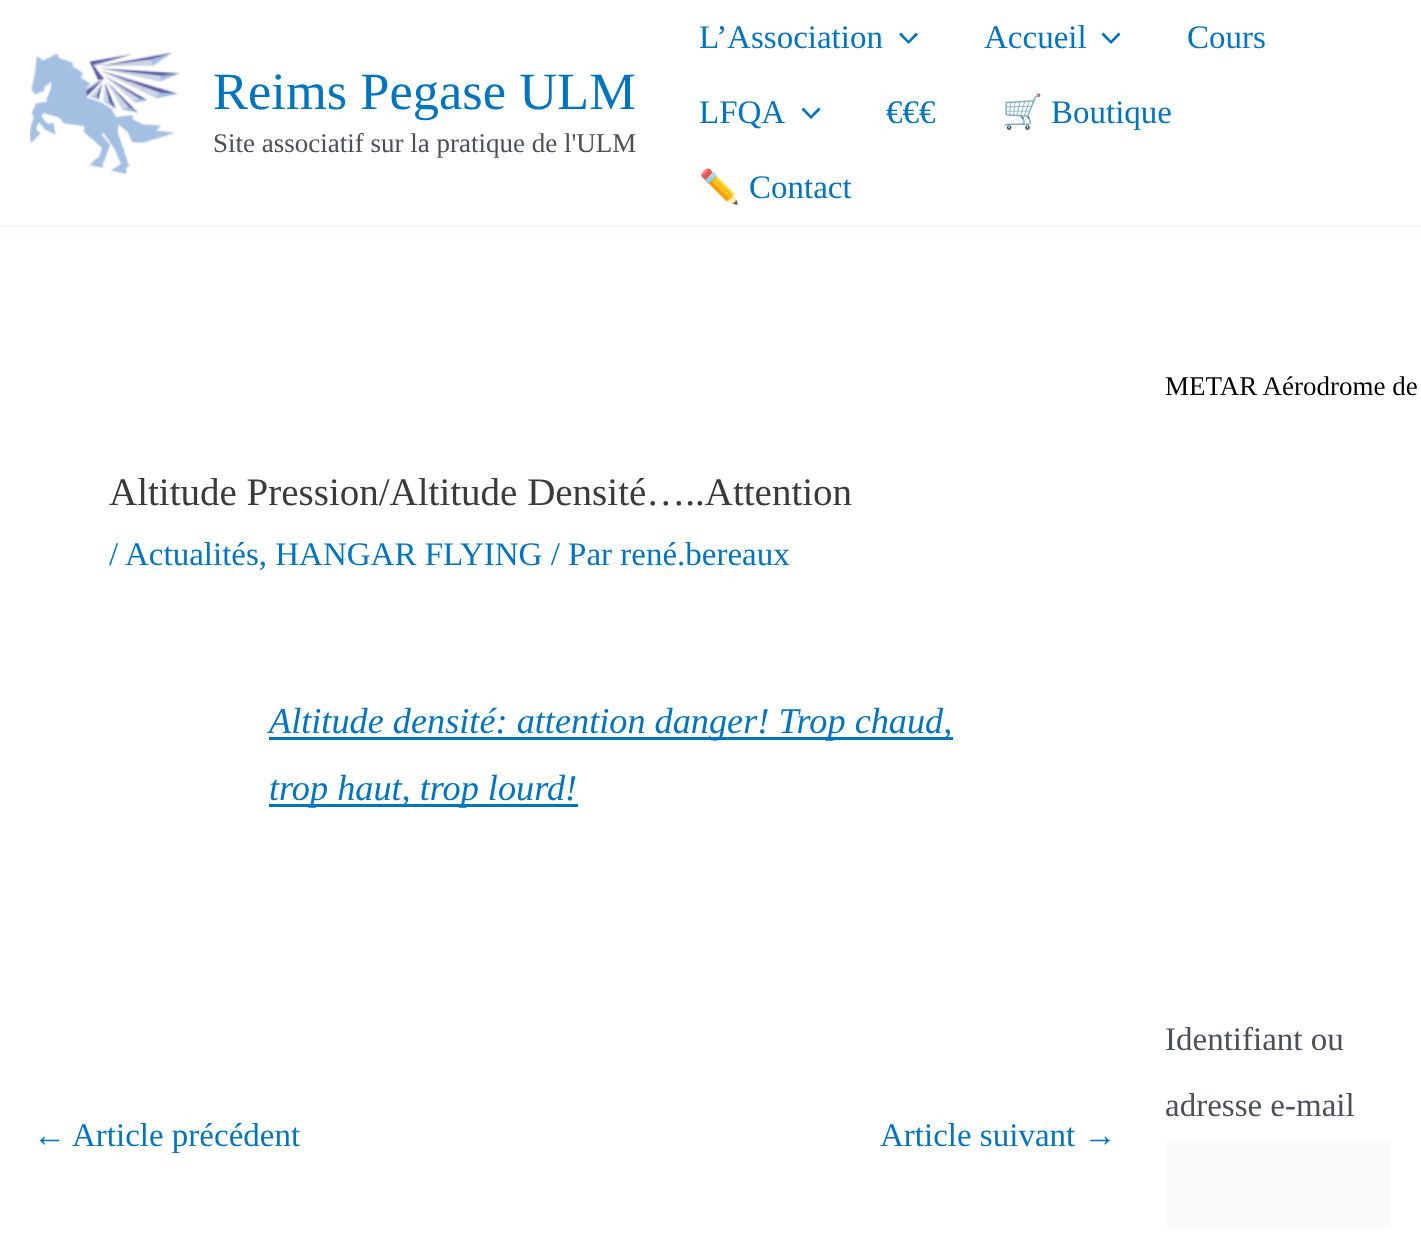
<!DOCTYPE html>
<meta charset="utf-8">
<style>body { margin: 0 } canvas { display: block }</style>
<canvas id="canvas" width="1421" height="1257"></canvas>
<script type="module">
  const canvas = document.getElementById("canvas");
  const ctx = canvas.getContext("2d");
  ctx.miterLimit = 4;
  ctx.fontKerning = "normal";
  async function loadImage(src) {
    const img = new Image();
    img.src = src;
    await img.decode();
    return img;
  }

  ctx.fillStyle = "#ffffff";
  ctx.fillRect(0, 0, 1421, 1257);
  ctx.fillStyle = "#f2f5f7";
  ctx.fillRect(0, 225, 1421, 2);
  ctx.drawImage(await loadImage("img1.png"), 30, 52, 150, 122);
  ctx.font = "52.5px Liberation Serif";
  ctx.fillStyle = "#0274be";
  ctx.fillText("Reims Pegase ULM", 213, 109);
  ctx.font = "27px Liberation Serif";
  ctx.fillStyle = "#4b4f58";
  ctx.fillText("Site associatif sur la pratique de l'ULM", 213, 152);
  ctx.font = "33px Liberation Serif";
  ctx.fillStyle = "#0274be";
  ctx.fillText("L’Association", 699, 48);
  ctx.beginPath();
  ctx.moveTo(899, 34.5);
  ctx.lineTo(908.5, 44);
  ctx.lineTo(918, 34.5);
  ctx.lineTo(916, 32.5);
  ctx.lineTo(908.5, 40.5);
  ctx.lineTo(901, 32.5);
  ctx.closePath();
  ctx.fill();
  ctx.fillText("Accueil", 984, 48);
  ctx.beginPath();
  ctx.moveTo(1101.5, 34.5);
  ctx.lineTo(1111, 44);
  ctx.lineTo(1120.5, 34.5);
  ctx.lineTo(1118.5, 32.5);
  ctx.lineTo(1111, 40.5);
  ctx.lineTo(1103.5, 32.5);
  ctx.closePath();
  ctx.fill();
  ctx.fillText("Cours", 1187, 48);
  ctx.fillText("LFQA", 699, 123);
  ctx.beginPath();
  ctx.moveTo(801.5, 109.5);
  ctx.lineTo(811, 119);
  ctx.lineTo(820.5, 109.5);
  ctx.lineTo(818.5, 107.5);
  ctx.lineTo(811, 115.5);
  ctx.lineTo(803.5, 107.5);
  ctx.closePath();
  ctx.fill();
  ctx.fillText("€€€", 886, 123);
  ctx.font = "33px Noto Color Emoji";
  ctx.fillText("🛒", 1002, 123);
  ctx.font = "33px Liberation Serif";
  ctx.fillText("Boutique", 1051, 123);
  ctx.font = "33px Noto Color Emoji";
  ctx.fillText("✏️", 699, 198);
  ctx.font = "33px Liberation Serif";
  ctx.fillText("Contact", 749, 198);
  ctx.font = "39px Liberation Serif";
  ctx.fillStyle = "#3a3a3a";
  ctx.fillText("Altitude Pression/Altitude Densité…..Attention", 109, 505);
  ctx.font = "33px Liberation Serif";
  ctx.fillStyle = "#0274be";
  ctx.fillText("/", 109, 565);
  ctx.fillText("Actualités, HANGAR FLYING / Par rené.bereaux", 125, 565);
  ctx.fillRect(269, 737, 684, 3);
  ctx.font = "italic 36.25px Liberation Serif";
  ctx.fillText("Altitude densité: attention danger! Trop chaud,", 269, 733);
  ctx.fillRect(269, 804, 309, 3);
  ctx.fillText("trop haut, trop lourd!", 269, 800);
  ctx.font = "33px Liberation Serif";
  ctx.fillText("←", 33, 1146);
  ctx.fillText("Article précédent", 72, 1146);
  ctx.fillText("Article suivant →", 880, 1146);
  ctx.font = "27px Liberation Serif";
  ctx.fillStyle = "#000000";
  ctx.fillText("METAR Aérodrome de", 1165, 395);
  ctx.font = "33px Liberation Serif";
  ctx.fillStyle = "#4b4f58";
  ctx.fillText("Identifiant ou", 1165, 1050);
  ctx.fillText("adresse e-mail", 1165, 1116);
  ctx.fillStyle = "#fafafa";
  ctx.beginPath();
  ctx.roundRect(1165, 1140, 226, 89, 2);
  ctx.fill();
  ctx.strokeStyle = "#ffffff";
  ctx.lineWidth = 2;
  ctx.stroke();
</script>
